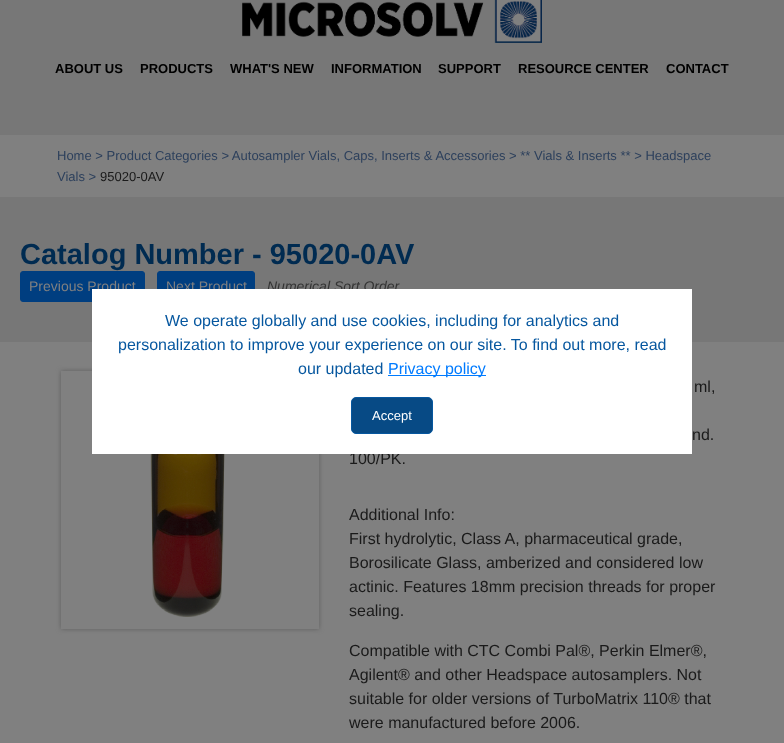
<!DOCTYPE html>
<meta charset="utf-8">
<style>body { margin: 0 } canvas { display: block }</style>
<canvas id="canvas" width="784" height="743"></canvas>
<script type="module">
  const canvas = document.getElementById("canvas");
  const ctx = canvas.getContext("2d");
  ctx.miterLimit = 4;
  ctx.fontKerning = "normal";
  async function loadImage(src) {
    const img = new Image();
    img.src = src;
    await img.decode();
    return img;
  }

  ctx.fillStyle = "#808080";
  ctx.fillRect(0, 0, 784, 743);
  ctx.fillStyle = "#777777";
  ctx.fillRect(0, 0, 784, 135);
  ctx.drawImage(await loadImage("img1.png"), 242, 0, 300, 43);
  ctx.font = "bold 13px Liberation Sans";
  ctx.fillStyle = "#000000";
  ctx.fillText("ABOUT US", 55, 73);
  ctx.fillText("PRODUCTS", 140, 73);
  ctx.fillText("WHAT'S NEW", 230, 73);
  ctx.fillText("INFORMATION", 331, 73);
  ctx.fillText("SUPPORT", 438, 73);
  ctx.fillText("RESOURCE CENTER", 518, 73);
  ctx.fillText("CONTACT", 666, 73);
  ctx.font = "13px Liberation Sans";
  ctx.fillStyle = "#2d405c";
  ctx.fillText("Home > Product Categories > Autosampler Vials, Caps, Inserts & Accessories > ** Vials & Inserts ** > Headspace", 57, 160);
  ctx.fillText("Vials >", 57, 181);
  ctx.fillStyle = "#1a1a1a";
  ctx.fillText("95020-0AV", 100, 181);
  ctx.fillStyle = "#777777";
  ctx.fillRect(0, 197, 784, 145);
  ctx.font = "bold 29px Liberation Sans";
  ctx.fillStyle = "#002b51";
  ctx.fillText("Catalog Number - 95020-0AV", 20, 264);
  ctx.fillStyle = "#003e80";
  ctx.beginPath();
  ctx.roundRect(20.5, 271.5, 124, 30, 2.5);
  ctx.fill();
  ctx.strokeStyle = "#003e80";
  ctx.stroke();
  ctx.font = "14px Liberation Sans";
  ctx.fillStyle = "#808080";
  ctx.fillText("Previous Product", 29, 291);
  ctx.fillStyle = "#003e80";
  ctx.beginPath();
  ctx.roundRect(157.5, 271.5, 97, 30, 2.5);
  ctx.fill();
  ctx.stroke();
  ctx.fillStyle = "#808080";
  ctx.fillText("Next Product", 166, 291);
  ctx.font = "italic 14px Liberation Sans";
  ctx.fillStyle = "#333333";
  ctx.fillText("Numerical Sort Order", 267, 291);
  ctx.save();
  ctx.beginPath();
  ctx.moveTo(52, 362);
  ctx.lineTo(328, 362);
  ctx.lineTo(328, 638);
  ctx.lineTo(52, 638);
  ctx.closePath();
  ctx.moveTo(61, 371);
  ctx.lineTo(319, 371);
  ctx.lineTo(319, 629);
  ctx.lineTo(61, 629);
  ctx.closePath();
  ctx.clip("evenodd");
  ctx.fillStyle = "#5e5e5e";
  ctx.filter = "blur(2.5px)";
  ctx.beginPath();
  ctx.rect(61, 371, 258, 258);
  ctx.fill();
  ctx.filter = "none";
  ctx.restore();
  ctx.drawImage(await loadImage("img2.png"), 150, 454, 75, 163);
  ctx.font = "16px Liberation Sans";
  ctx.fillStyle = "#1a1a1a";
  ctx.fillText("ml,", 694, 392);
  ctx.fillText("nd.", 692, 440);
  ctx.fillText("100/PK.", 349, 464);
  ctx.fillText("Additional Info:", 349, 520);
  ctx.fillText("First hydrolytic, Class A, pharmaceutical grade,", 349, 544);
  ctx.fillText("Borosilicate Glass, amberized and considered low", 349, 568);
  ctx.fillText("actinic. Features 18mm precision threads for proper", 349, 592);
  ctx.fillText("sealing.", 349, 616);
  ctx.fillText("Compatible with CTC Combi Pal®, Perkin Elmer®,", 349, 656);
  ctx.fillText("Agilent® and other Headspace autosamplers. Not", 349, 680);
  ctx.fillText("suitable for older versions of TurboMatrix 110® that", 349, 704);
  ctx.fillText("were manufactured before 2006.", 349, 728);
  ctx.fillStyle = "#ffffff";
  ctx.fillRect(92, 289, 600, 165);
  ctx.fillStyle = "#06579f";
  ctx.fillText("We operate globally and use cookies, including for analytics and", 165, 326);
  ctx.fillText("personalization to improve your experience on our site. To find out more, read", 118, 350);
  ctx.fillText("our updated", 298, 374);
  ctx.fillStyle = "#007bff";
  ctx.fillRect(388, 375, 98, 1);
  ctx.fillText("Privacy policy", 388, 374);
  ctx.fillStyle = "#074a85";
  ctx.beginPath();
  ctx.roundRect(351.5, 397.5, 81, 36, 4.5);
  ctx.fill();
  ctx.strokeStyle = "#06579f";
  ctx.stroke();
  ctx.font = "13px Liberation Sans";
  ctx.fillStyle = "#ffffff";
  ctx.fillText("Accept", 372, 420);
</script>
